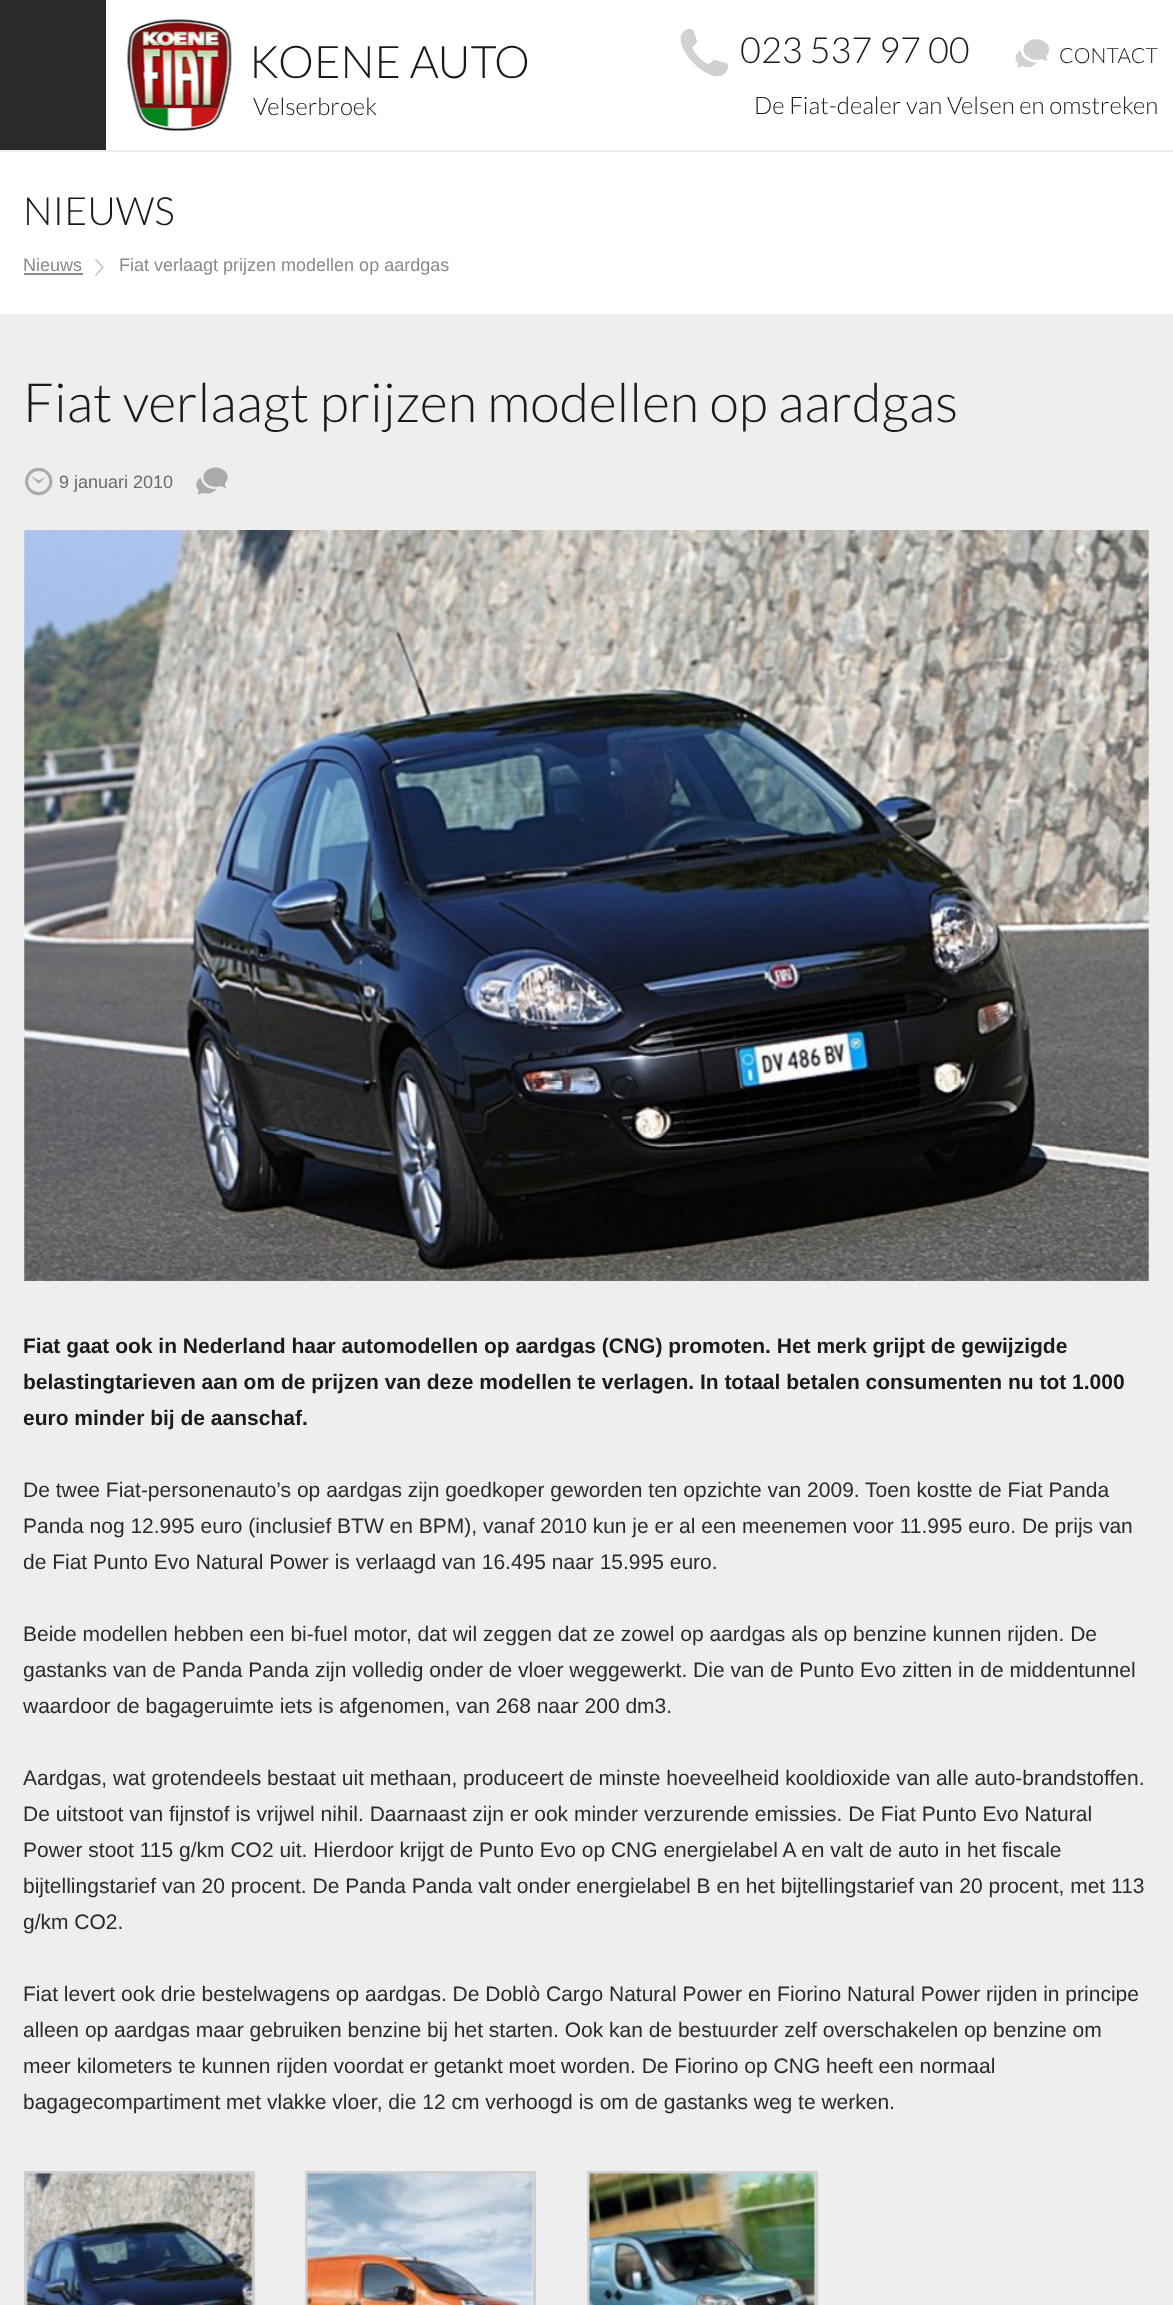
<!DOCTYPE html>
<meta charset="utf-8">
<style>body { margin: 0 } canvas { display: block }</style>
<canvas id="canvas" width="1173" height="2305"></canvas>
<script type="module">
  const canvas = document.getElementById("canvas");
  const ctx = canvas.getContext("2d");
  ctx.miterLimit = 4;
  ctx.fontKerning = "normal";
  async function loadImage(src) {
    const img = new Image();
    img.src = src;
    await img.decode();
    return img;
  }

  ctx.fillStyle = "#eeeeee";
  ctx.fillRect(0, 0, 1173, 2305);
  ctx.fillStyle = "#ffffff";
  ctx.fillRect(106, 0, 1067, 150);
  ctx.fillStyle = "#2a2a2a";
  ctx.fillRect(0, 0, 106, 150);
  ctx.drawImage(await loadImage("img1.png"), 127, 19, 105, 112);
  ctx.font = "300 45px Lato";
  ctx.fillStyle = "#1a1a1a";
  ctx.fillText("KOENE AUTO", 249, 78);
  ctx.font = "300 24px Lato";
  ctx.fillText("Velserbroek", 253, 115);
  ctx.font = "75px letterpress";
  ctx.fillStyle = "#d1d1d1";
  ctx.fillText("2", 665, 86);
  ctx.font = "300 36px Lato";
  ctx.fillStyle = "#1a1a1a";
  ctx.fillText("023 537 97 00", 740, 63);
  ctx.font = "48px letterpress";
  ctx.fillStyle = "#d1d1d1";
  ctx.fillText(",", 1008, 75);
  ctx.font = "300 21px Lato";
  ctx.fillStyle = "#1a1a1a";
  ctx.fillText("CONTACT", 1059, 63);
  ctx.font = "300 24px Lato";
  ctx.fillText("De Fiat-dealer van Velsen en omstreken", 754, 114);
  ctx.fillStyle = "#ffffff";
  ctx.fillRect(0, 152, 1173, 162);
  ctx.font = "300 39px Lato";
  ctx.fillStyle = "#1a1a1a";
  ctx.fillText("NIEUWS", 23, 225);
  ctx.font = "18px Liberation Sans";
  ctx.fillStyle = "#8a8a8a";
  ctx.fillText("Nieuws", 23, 271);
  ctx.fillRect(24, 273, 59, 2);
  ctx.drawImage(await loadImage("img2.png"), 94, 258, 10, 18);
  ctx.fillText("Fiat verlaagt prijzen modellen op aardgas", 119, 271);
  ctx.font = "300 54px Lato";
  ctx.fillStyle = "#1a1a1a";
  ctx.fillText("Fiat verlaagt prijzen modellen op aardgas", 23, 422);
  ctx.font = "45px letterpress";
  ctx.fillStyle = "#aaaaaa";
  ctx.fillText("?", 16, 501);
  ctx.font = "18px Liberation Sans";
  ctx.fillStyle = "#696b6d";
  ctx.fillText("9 januari 2010", 59, 488);
  ctx.font = "45px letterpress";
  ctx.fillStyle = "#aaaaaa";
  ctx.fillText(",", 189, 501);
  ctx.drawImage(await loadImage("img3.png"), 24, 530, 1125, 751);
  ctx.font = "bold 21px Liberation Sans";
  ctx.fillStyle = "#1a1a1a";
  ctx.fillText("Fiat gaat ook in Nederland haar automodellen op aardgas (CNG) promoten. Het merk grijpt de gewijzigde", 23, 1353);
  ctx.fillText("belastingtarieven aan om de prijzen van deze modellen te verlagen. In totaal betalen consumenten nu tot 1.000", 23, 1389);
  ctx.fillText("euro minder bij de aanschaf.", 23, 1425);
  ctx.font = "21px Liberation Sans";
  ctx.fillStyle = "#2a2a2a";
  ctx.fillText("De twee Fiat-personenauto’s op aardgas zijn goedkoper geworden ten opzichte van 2009. Toen kostte de Fiat Panda", 23, 1497);
  ctx.fillText("Panda nog 12.995 euro (inclusief BTW en BPM), vanaf 2010 kun je er al een meenemen voor 11.995 euro. De prijs van", 23, 1533);
  ctx.fillText("de Fiat Punto Evo Natural Power is verlaagd van 16.495 naar 15.995 euro.", 23, 1569);
  ctx.fillText("Beide modellen hebben een bi-fuel motor, dat wil zeggen dat ze zowel op aardgas als op benzine kunnen rijden. De", 23, 1641);
  ctx.fillText("gastanks van de Panda Panda zijn volledig onder de vloer weggewerkt. Die van de Punto Evo zitten in de middentunnel", 23, 1677);
  ctx.fillText("waardoor de bagageruimte iets is afgenomen, van 268 naar 200 dm3.", 23, 1713);
  ctx.fillText("Aardgas, wat grotendeels bestaat uit methaan, produceert de minste hoeveelheid kooldioxide van alle auto-brandstoffen.", 23, 1785);
  ctx.fillText("De uitstoot van fijnstof is vrijwel nihil. Daarnaast zijn er ook minder verzurende emissies. De Fiat Punto Evo Natural", 23, 1821);
  ctx.fillText("Power stoot 115 g/km CO2 uit. Hierdoor krijgt de Punto Evo op CNG energielabel A en valt de auto in het fiscale", 23, 1857);
  ctx.fillText("bijtellingstarief van 20 procent. De Panda Panda valt onder energielabel B en het bijtellingstarief van 20 procent, met 113", 23, 1893);
  ctx.fillText("g/km CO2.", 23, 1929);
  ctx.fillText("Fiat levert ook drie bestelwagens op aardgas. De Doblò Cargo Natural Power en Fiorino Natural Power rijden in principe", 23, 2001);
  ctx.fillText("alleen op aardgas maar gebruiken benzine bij het starten. Ook kan de bestuurder zelf overschakelen op benzine om", 23, 2037);
  ctx.fillText("meer kilometers te kunnen rijden voordat er getankt moet worden. De Fiorino op CNG heeft een normaal", 23, 2073);
  ctx.fillText("bagagecompartiment met vlakke vloer, die 12 cm verhoogd is om de gastanks weg te werken.", 23, 2109);
  ctx.strokeStyle = "#cfcfcf";
  ctx.lineWidth = 3;
  ctx.strokeRect(25.5, 2172.5, 228, 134);
  ctx.drawImage(await loadImage("img4.png"), 26, 2173, 227, 132);
  ctx.strokeRect(306.5, 2172.5, 228, 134);
  ctx.drawImage(await loadImage("img5.png"), 307, 2173, 226, 132);
  ctx.strokeRect(588.5, 2172.5, 228, 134);
  ctx.drawImage(await loadImage("img6.png"), 589, 2173, 226, 132);
</script>
